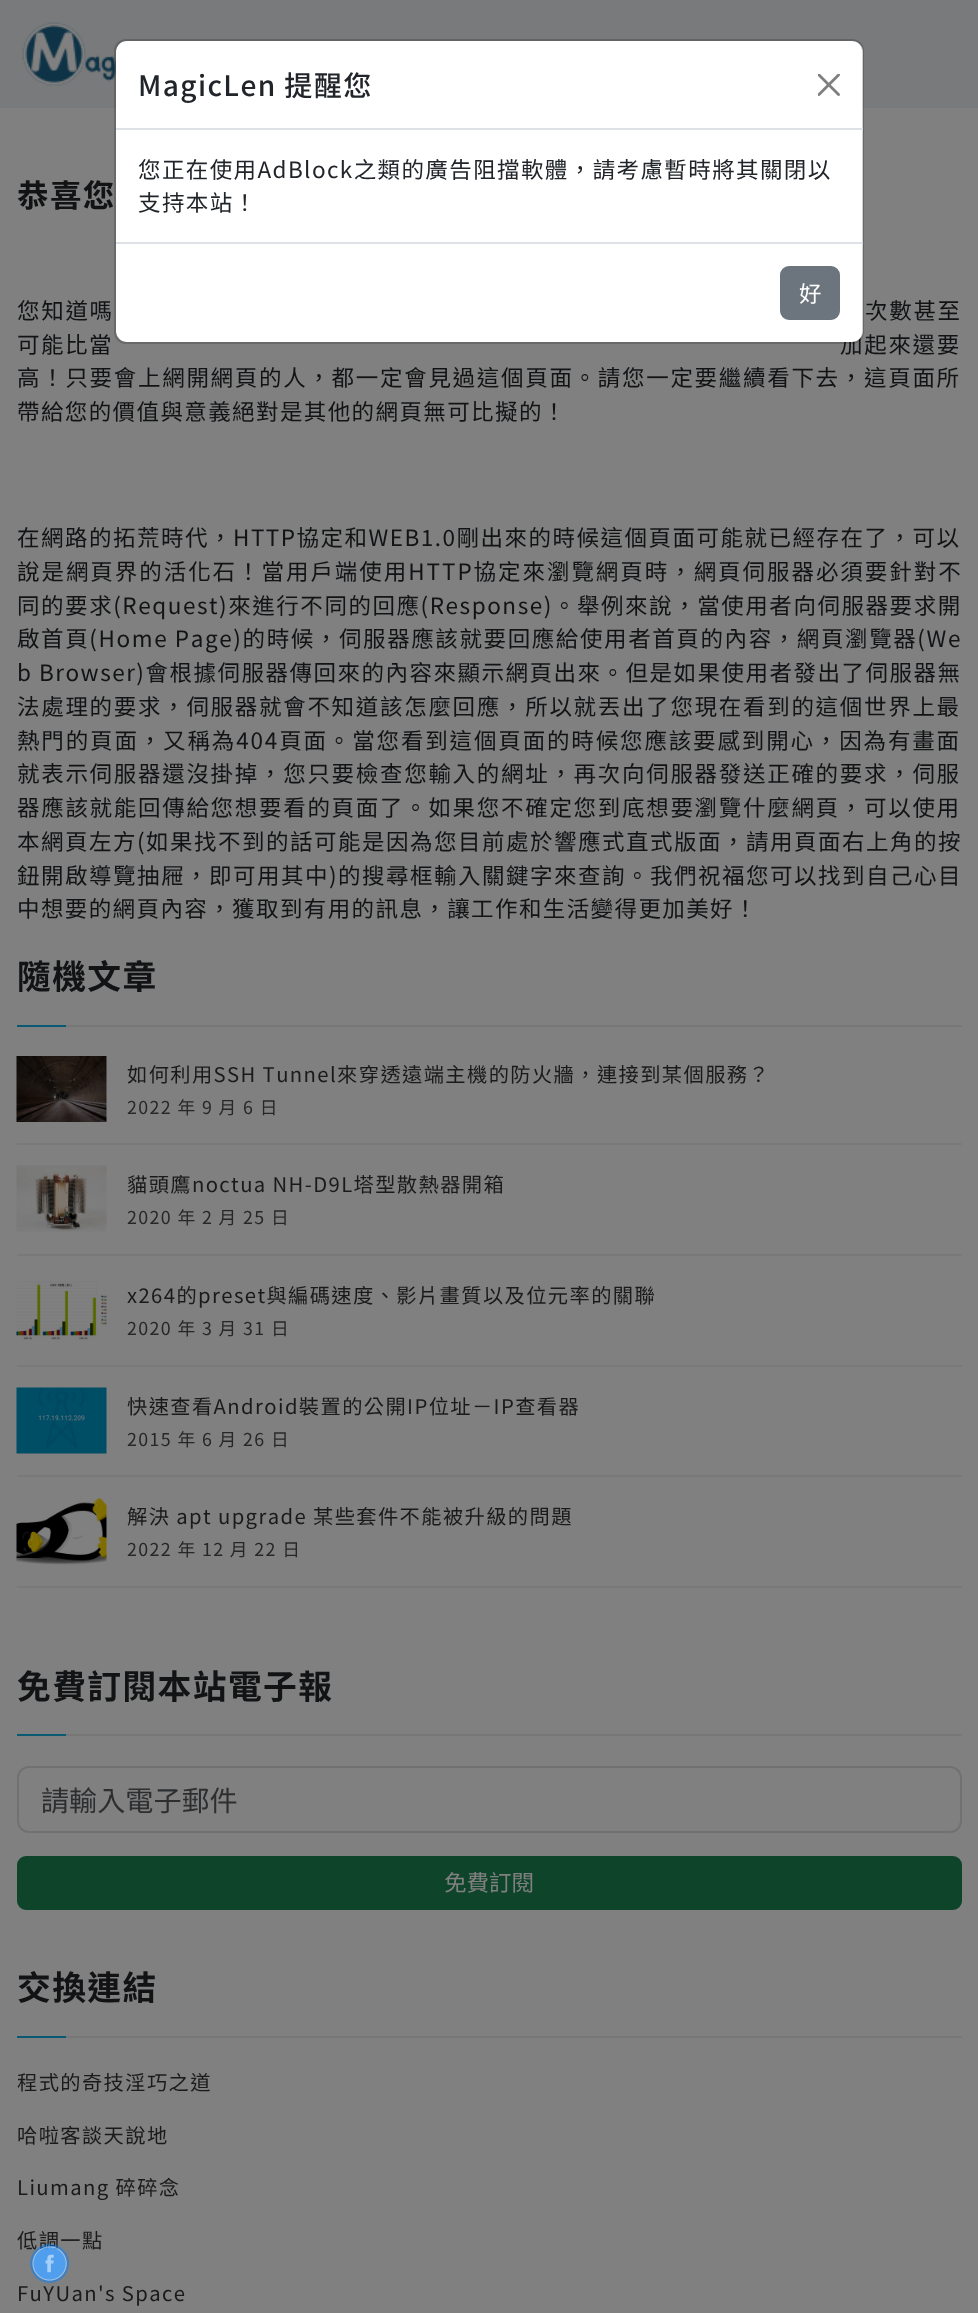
<!DOCTYPE html>
<meta charset="utf-8">
<style>body { margin: 0 } canvas { display: block }</style>
<canvas id="canvas" width="978" height="2313"></canvas>
<script type="module">
  const canvas = document.getElementById("canvas");
  const ctx = canvas.getContext("2d");
  ctx.miterLimit = 4;
  ctx.fontKerning = "none";
  async function loadImage(src) {
    const img = new Image();
    img.src = src;
    await img.decode();
    return img;
  }

  ctx.fillStyle = "#808080";
  ctx.fillRect(0, 0, 978, 2313);
  ctx.fillStyle = "#787a7c";
  ctx.fillRect(0, 0, 978, 108);
  ctx.drawImage(await loadImage("img2.png"), 22, 22, 95, 64);
  ctx.letterSpacing = "1.7px";
  ctx.font = "22.5px Noto Sans CJK TC";
  ctx.fillStyle = "#111315";
  ctx.fillText("加起來還要", 840, 353);
  ctx.fillStyle = "#ffffff";
  ctx.beginPath();
  ctx.roundRect(116, 41, 747, 301, 11);
  ctx.fill();
  ctx.beginPath();
  ctx.roundRect(115, 40, 748, 303, 11);
  ctx.strokeStyle = "rgba(0, 0, 0, 0.18)";
  ctx.lineWidth = 2;
  ctx.stroke();
  ctx.fillStyle = "#dee2e6";
  ctx.fillRect(116, 128, 747, 2);
  ctx.letterSpacing = "1.4px";
  ctx.font = "500 28.1px Noto Sans CJK TC";
  ctx.fillStyle = "#212529";
  ctx.fillText("MagicLen 提醒您", 138, 96);
  ctx.drawImage(await loadImage("img1.png"), 818, 74, 22, 22);
  ctx.font = "22.5px Noto Sans CJK TC";
  ctx.fillText("您正在使用AdBlock之類的廣告阻擋軟體，請考慮暫時將其關閉以", 138, 178);
  ctx.fillText("支持本站！", 138, 211);
  ctx.fillStyle = "#dee2e6";
  ctx.fillRect(116, 242, 747, 2);
  ctx.fillStyle = "#6c757d";
  ctx.beginPath();
  ctx.roundRect(781, 267, 58, 52, 8);
  ctx.fill();
  ctx.strokeStyle = "#6c757d";
  ctx.stroke();
  ctx.letterSpacing = "0px";
  ctx.fillStyle = "#ffffff";
  ctx.fillText("好", 799, 302);
  ctx.letterSpacing = "1.4px";
  ctx.font = "bold 31.5px Noto Sans CJK TC";
  ctx.fillStyle = "#111315";
  ctx.fillText("恭喜您", 17, 207);
  ctx.letterSpacing = "1.7px";
  ctx.font = "22.5px Noto Sans CJK TC";
  ctx.fillText("您知道嗎", 17, 319);
  ctx.fillText("次數甚至", 865, 319);
  ctx.letterSpacing = "1.5px";
  ctx.fillText("可能比當", 17, 353);
  ctx.letterSpacing = "1.7px";
  ctx.fillText("高！只要會上網開網頁的人，都一定會見過這個頁面。請您一定要繼續看下去，這頁面所", 17, 386);
  ctx.letterSpacing = "1.4px";
  ctx.fillText("帶給您的價值與意義絕對是其他的網頁無可比擬的！", 17, 420);
  ctx.letterSpacing = "1.5px";
  ctx.fillText("在網路的拓荒時代，HTTP協定和WEB1.0剛出來的時候這個頁面可能就已經存在了，可以", 17, 546);
  ctx.letterSpacing = "1.95px";
  ctx.fillText("說是網頁界的活化石！當用戶端使用HTTP協定來瀏覽網頁時，網頁伺服器必須要針對不", 17, 580);
  ctx.letterSpacing = "1.55px";
  ctx.fillText("同的要求(Request)來進行不同的回應(Response)。舉例來說，當使用者向伺服器要求開", 17, 614);
  ctx.letterSpacing = "1.6px";
  ctx.fillText("啟首頁(Home Page)的時候，伺服器應該就要回應給使用者首頁的內容，網頁瀏覽器(We", 17, 647);
  ctx.letterSpacing = "1.5px";
  ctx.fillText("b Browser)會根據伺服器傳回來的內容來顯示網頁出來。但是如果使用者發出了伺服器無", 17, 681);
  ctx.letterSpacing = "1.7px";
  ctx.fillText("法處理的要求，伺服器就會不知道該怎麼回應，所以就丟出了您現在看到的這個世界上最", 17, 715);
  ctx.letterSpacing = "1.85px";
  ctx.fillText("熱門的頁面，又稱為404頁面。當您看到這個頁面的時候您應該要感到開心，因為有畫面", 17, 749);
  ctx.letterSpacing = "1.7px";
  ctx.fillText("就表示伺服器還沒掛掉，您只要檢查您輸入的網址，再次向伺服器發送正確的要求，伺服", 17, 782);
  ctx.fillText("器應該就能回傳給您想要看的頁面了。如果您不確定您到底想要瀏覽什麼網頁，可以使用", 17, 816);
  ctx.letterSpacing = "1.5px";
  ctx.fillText("本網頁左方(如果找不到的話可能是因為您目前處於響應式直式版面，請用頁面右上角的按", 17, 850);
  ctx.fillText("鈕開啟導覽抽屜，即可用其中)的搜尋框輸入關鍵字來查詢。我們祝福您可以找到自己心目", 17, 884);
  ctx.letterSpacing = "1.4px";
  ctx.fillText("中想要的網頁內容，獲取到有用的訊息，讓工作和生活變得更加美好！", 17, 917);
  ctx.font = "bold 33.75px Noto Sans CJK TC";
  ctx.fillText("隨機文章", 17, 989);
  ctx.fillStyle = "#075a72";
  ctx.fillRect(17, 1025, 49, 2);
  ctx.fillStyle = "#777777";
  ctx.fillRect(66, 1025, 896, 2);
  ctx.fillStyle = "#797979";
  ctx.fillRect(17, 1143, 945, 2);
  ctx.drawImage(await loadImage("img3.png"), 16, 1056, 91, 66);
  ctx.font = "20.25px Noto Sans CJK TC";
  ctx.fillStyle = "#1a1a1a";
  ctx.fillText("如何利用SSH Tunnel來穿透遠端主機的防火牆，連接到某個服務？", 127, 1082);
  ctx.font = "17.75px Noto Sans CJK TC";
  ctx.fillStyle = "#272727";
  ctx.fillText("2022 年 9 月 6 日", 127, 1114);
  ctx.fillStyle = "#797979";
  ctx.fillRect(17, 1254, 945, 2);
  ctx.drawImage(await loadImage("img4.png"), 16, 1165, 91, 67);
  ctx.font = "20.25px Noto Sans CJK TC";
  ctx.fillStyle = "#1a1a1a";
  ctx.fillText("貓頭鷹noctua NH-D9L塔型散熱器開箱", 127, 1192);
  ctx.font = "17.75px Noto Sans CJK TC";
  ctx.fillStyle = "#272727";
  ctx.fillText("2020 年 2 月 25 日", 127, 1224);
  ctx.fillStyle = "#797979";
  ctx.fillRect(17, 1365, 945, 2);
  ctx.drawImage(await loadImage("img5.png"), 16, 1281, 91, 59);
  ctx.font = "20.25px Noto Sans CJK TC";
  ctx.fillStyle = "#1a1a1a";
  ctx.fillText("x264的preset與編碼速度、影片畫質以及位元率的關聯", 127, 1303);
  ctx.font = "17.75px Noto Sans CJK TC";
  ctx.fillStyle = "#272727";
  ctx.fillText("2020 年 3 月 31 日", 127, 1335);
  ctx.fillStyle = "#797979";
  ctx.fillRect(17, 1475, 945, 2);
  ctx.drawImage(await loadImage("img6.png"), 16, 1387, 91, 67);
  ctx.font = "20.25px Noto Sans CJK TC";
  ctx.fillStyle = "#1a1a1a";
  ctx.fillText("快速查看Android裝置的公開IP位址－IP查看器", 127, 1414);
  ctx.font = "17.75px Noto Sans CJK TC";
  ctx.fillStyle = "#272727";
  ctx.fillText("2015 年 6 月 26 日", 127, 1446);
  ctx.fillStyle = "#797979";
  ctx.fillRect(17, 1586, 945, 2);
  ctx.drawImage(await loadImage("img7.png"), 16, 1498, 91, 67);
  ctx.font = "20.25px Noto Sans CJK TC";
  ctx.fillStyle = "#1a1a1a";
  ctx.fillText("解決 apt upgrade 某些套件不能被升級的問題", 127, 1524);
  ctx.font = "17.75px Noto Sans CJK TC";
  ctx.fillStyle = "#272727";
  ctx.fillText("2022 年 12 月 22 日", 127, 1556);
  ctx.font = "bold 33.75px Noto Sans CJK TC";
  ctx.fillStyle = "#111315";
  ctx.fillText("免費訂閱本站電子報", 17, 1699);
  ctx.fillStyle = "#075a72";
  ctx.fillRect(17, 1734, 49, 2);
  ctx.fillStyle = "#777777";
  ctx.fillRect(66, 1734, 896, 2);
  ctx.beginPath();
  ctx.roundRect(18, 1767, 943, 65, 11);
  ctx.strokeStyle = "#6f7173";
  ctx.stroke();
  ctx.letterSpacing = "0px";
  ctx.font = "28.1px Noto Sans CJK TC";
  ctx.fillStyle = "#2d2e30";
  ctx.fillText("請輸入電子郵件", 41, 1811);
  ctx.fillStyle = "#0d442a";
  ctx.beginPath();
  ctx.roundRect(18, 1857, 943, 52, 8);
  ctx.fill();
  ctx.strokeStyle = "#0d442a";
  ctx.stroke();
  ctx.font = "22.5px Noto Sans CJK TC";
  ctx.fillStyle = "#808080";
  ctx.fillText("免費訂閱", 444, 1891);
  ctx.letterSpacing = "1.4px";
  ctx.font = "bold 33.75px Noto Sans CJK TC";
  ctx.fillStyle = "#111315";
  ctx.fillText("交換連結", 17, 2000);
  ctx.fillStyle = "#075a72";
  ctx.fillRect(17, 2036, 49, 2);
  ctx.fillStyle = "#777777";
  ctx.fillRect(66, 2036, 896, 2);
  ctx.font = "20.25px Noto Sans CJK TC";
  ctx.fillStyle = "#1a1a1a";
  ctx.fillText("程式的奇技淫巧之道", 17, 2090);
  ctx.fillText("哈啦客談天說地", 17, 2143);
  ctx.fillText("Liumang 碎碎念", 17, 2195);
  ctx.fillText("低調一點", 17, 2248);
  ctx.fillText("FuYUan's Space", 17, 2301);
  ctx.drawImage(await loadImage("img8.png"), 30, 2244, 39, 39);
</script>
